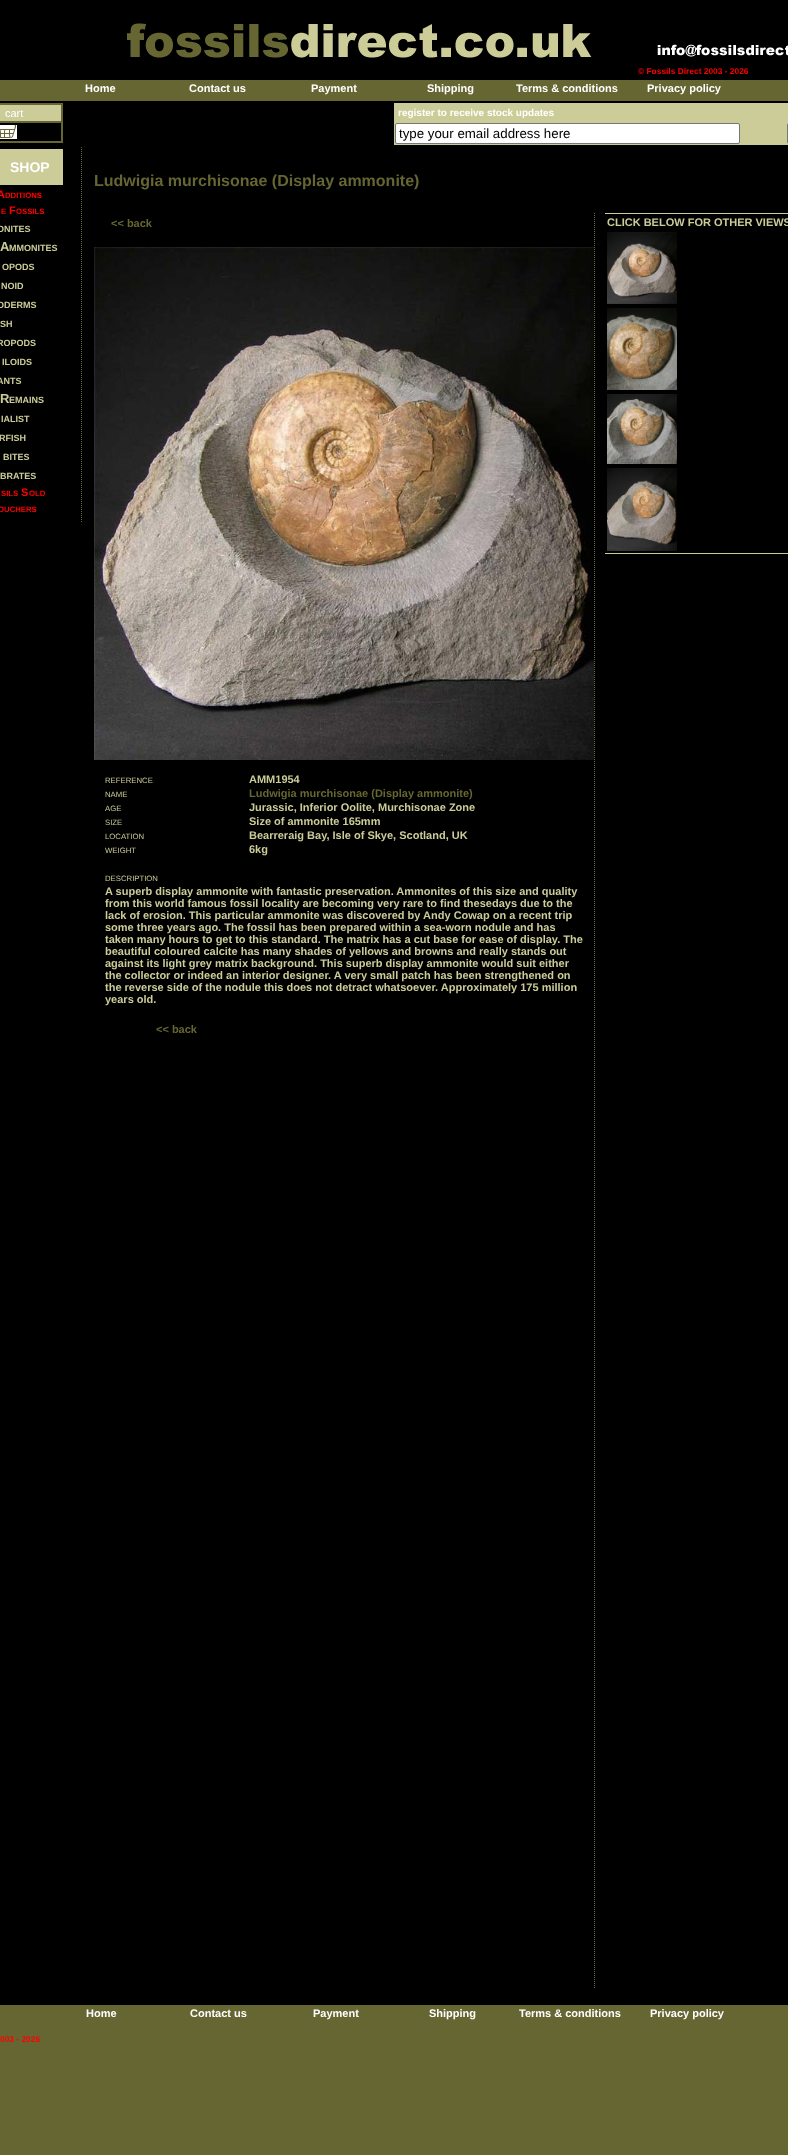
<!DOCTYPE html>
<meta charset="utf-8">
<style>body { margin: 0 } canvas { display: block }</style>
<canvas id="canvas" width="788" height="2155"></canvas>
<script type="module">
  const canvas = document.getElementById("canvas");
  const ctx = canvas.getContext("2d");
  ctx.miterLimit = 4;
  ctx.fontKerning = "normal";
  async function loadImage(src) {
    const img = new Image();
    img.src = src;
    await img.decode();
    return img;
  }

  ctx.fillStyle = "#000000";
  ctx.fillRect(0, 0, 788, 2155);
  ctx.drawImage(await loadImage("img1.png"), 127, 23, 465, 35);
  ctx.drawImage(await loadImage("img2.png"), 657, 44, 131, 13);
  ctx.font = "bold 8.4px Liberation Sans";
  ctx.fillStyle = "#ff0000";
  ctx.fillText("© Fossils Direct 2003 - 2026", 638, 74);
  ctx.fillStyle = "#666633";
  ctx.fillRect(0, 80, 788, 21);
  ctx.font = "bold 11px Liberation Sans";
  ctx.fillStyle = "#ffffff";
  ctx.fillText("Home", 85, 92);
  ctx.fillText("Contact us", 189, 92);
  ctx.fillText("Payment", 311, 92);
  ctx.fillText("Shipping", 427, 92);
  ctx.fillText("Terms & conditions", 516, 92);
  ctx.fillText("Privacy policy", 647, 92);
  ctx.strokeStyle = "#666633";
  ctx.strokeRect(-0.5, 103.5, 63, 39);
  ctx.fillStyle = "#cccc99";
  ctx.beginPath();
  ctx.rect(-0.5, 104.5, 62, 17);
  ctx.fill();
  ctx.stroke();
  ctx.font = "11px Liberation Sans";
  ctx.fillStyle = "#ffffff";
  ctx.fillText("cart", 5, 117);
  ctx.strokeRect(-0.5, 122.5, 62, 19);
  ctx.drawImage(await loadImage("img3.png"), 0, 125, 17, 14);
  ctx.fillStyle = "#cccc99";
  ctx.fillRect(394, 103, 394, 42);
  ctx.font = "bold 10px Liberation Sans";
  ctx.fillStyle = "#ffffff";
  ctx.fillText("register to receive stock updates", 398, 116);
  ctx.beginPath();
  ctx.roundRect(395.5, 123.5, 344, 20, 1.5);
  ctx.fill();
  ctx.strokeStyle = "#767676";
  ctx.stroke();
  ctx.font = "13.3px Liberation Sans";
  ctx.fillStyle = "#000000";
  ctx.fillText("type your email address here", 399, 138);
  ctx.beginPath();
  ctx.roundRect(787.5, 123.5, 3, 20, 1.5);
  ctx.stroke();
  ctx.beginPath();
  ctx.moveTo(81.5, 147);
  ctx.lineTo(81.5, 523);
  ctx.strokeStyle = "#666633";
  ctx.setLineDash([1, 1]);
  ctx.stroke();
  ctx.fillStyle = "#cccc99";
  ctx.fillRect(0, 149, 63, 36);
  ctx.font = "bold 14px Liberation Sans";
  ctx.fillStyle = "#ffffff";
  ctx.fillText("SHOP", 10, 172);
  ctx.font = "bold 11px Liberation Sans";
  ctx.fillStyle = "#ff0000";
  ctx.fillText("A", -3, 198);
  ctx.font = "bold 7.75px Liberation Sans";
  ctx.fillText("DDITIONS", 5, 198);
  ctx.fillText("E", 1, 214);
  ctx.font = "bold 11px Liberation Sans";
  ctx.fillText("F", 9, 214);
  ctx.font = "bold 7.75px Liberation Sans";
  ctx.fillText("OSSILS", 16, 214);
  ctx.font = "bold 9px Liberation Sans";
  ctx.fillStyle = "#cccc99";
  ctx.fillText("ONITES", -3, 232);
  ctx.font = "bold 13px Liberation Sans";
  ctx.fillText("A", 0, 251);
  ctx.font = "bold 9px Liberation Sans";
  ctx.fillText("MMONITES", 9, 251);
  ctx.fillText("OPODS", 2, 270);
  ctx.fillText("NOID", 1, 289);
  ctx.fillText("ODERMS", -3, 308);
  ctx.fillText("SH", 0, 327);
  ctx.fillText("ROPODS", -3, 346);
  ctx.fillText("ILOIDS", 2, 365);
  ctx.fillText("ANTS", -3, 384);
  ctx.font = "bold 13px Liberation Sans";
  ctx.fillText("R", 0, 403);
  ctx.font = "bold 9px Liberation Sans";
  ctx.fillText("EMAINS", 9, 403);
  ctx.fillText("IALIST", 1, 422);
  ctx.fillText("RFISH", -1, 441);
  ctx.fillText("BITES", 3, 460);
  ctx.fillText("BRATES", 0, 479);
  ctx.font = "bold 7.75px Liberation Sans";
  ctx.fillStyle = "#ff0000";
  ctx.fillText("SILS", 1, 496);
  ctx.font = "bold 11px Liberation Sans";
  ctx.fillText("S", 21, 496);
  ctx.font = "bold 7.75px Liberation Sans";
  ctx.fillText("OLD", 29, 496);
  ctx.fillText("OUCHERS", -2, 512);
  ctx.font = "bold 16px Liberation Sans";
  ctx.fillStyle = "#666633";
  ctx.fillText("Ludwigia murchisonae (Display ammonite)", 94, 186);
  ctx.beginPath();
  ctx.moveTo(594.5, 213);
  ctx.lineTo(594.5, 1989);
  ctx.stroke();
  ctx.font = "bold 11px Liberation Sans";
  ctx.fillText("<< back", 111, 227);
  ctx.drawImage(await loadImage("img4.png"), 94, 247, 500, 513);
  ctx.font = "7.75px Liberation Sans";
  ctx.fillStyle = "#cccc99";
  ctx.fillText("REFERENCE", 105, 783);
  ctx.font = "bold 11px Liberation Sans";
  ctx.fillText("AMM1954", 249, 783);
  ctx.font = "7.75px Liberation Sans";
  ctx.fillText("NAME", 105, 797);
  ctx.font = "bold 11px Liberation Sans";
  ctx.fillStyle = "#666633";
  ctx.fillText("Ludwigia murchisonae (Display ammonite)", 249, 797);
  ctx.font = "7.75px Liberation Sans";
  ctx.fillStyle = "#cccc99";
  ctx.fillText("AGE", 105, 811);
  ctx.font = "bold 11px Liberation Sans";
  ctx.fillText("Jurassic, Inferior Oolite, Murchisonae Zone", 249, 811);
  ctx.font = "7.75px Liberation Sans";
  ctx.fillText("SIZE", 105, 825);
  ctx.font = "bold 11px Liberation Sans";
  ctx.fillText("Size of ammonite 165mm", 249, 825);
  ctx.font = "7.75px Liberation Sans";
  ctx.fillText("LOCATION", 105, 839);
  ctx.font = "bold 11px Liberation Sans";
  ctx.fillText("Bearreraig Bay, Isle of Skye, Scotland, UK", 249, 839);
  ctx.font = "7.75px Liberation Sans";
  ctx.fillText("WEIGHT", 105, 853);
  ctx.font = "bold 11px Liberation Sans";
  ctx.fillText("6kg", 249, 853);
  ctx.font = "7.75px Liberation Sans";
  ctx.fillText("DESCRIPTION", 105, 881);
  ctx.font = "bold 11px Liberation Sans";
  ctx.fillText("A superb display ammonite with fantastic preservation. Ammonites of this size and quality", 105, 895);
  ctx.fillText("from this world famous fossil locality are becoming very rare to find thesedays due to the", 105, 907);
  ctx.fillText("lack of erosion. This particular ammonite was discovered by Andy Cowap on a recent trip", 105, 919);
  ctx.fillText("some three years ago. The fossil has been prepared within a sea-worn nodule and has", 105, 931);
  ctx.fillText("taken many hours to get to this standard. The matrix has a cut base for ease of display. The", 105, 943);
  ctx.fillText("beautiful coloured calcite has many shades of yellows and browns and really stands out", 105, 955);
  ctx.fillText("against its light grey matrix background. This superb display ammonite would suit either", 105, 967);
  ctx.fillText("the collector or indeed an interior designer. A very small patch has been strengthened on", 105, 979);
  ctx.fillText("the reverse side of the nodule this does not detract whatsoever. Approximately 175 million", 105, 991);
  ctx.fillText("years old.", 105, 1003);
  ctx.fillStyle = "#666633";
  ctx.fillText("<< back", 156, 1033);
  ctx.fillStyle = "#cccc99";
  ctx.fillRect(605, 213, 183, 1);
  ctx.fillRect(605, 553, 183, 1);
  ctx.fillText("CLICK BELOW FOR OTHER VIEWS", 607, 226);
  ctx.drawImage(await loadImage("img5.png"), 607, 232, 70, 72);
  ctx.drawImage(await loadImage("img6.png"), 607, 308, 70, 82);
  ctx.drawImage(await loadImage("img7.png"), 607, 394, 70, 70);
  ctx.drawImage(await loadImage("img8.png"), 607, 468, 70, 83);
  ctx.fillStyle = "#666633";
  ctx.fillRect(0, 2005, 788, 150);
  ctx.fillStyle = "#ffffff";
  ctx.fillText("Home", 86, 2017);
  ctx.fillText("Contact us", 190, 2017);
  ctx.fillText("Payment", 313, 2017);
  ctx.fillText("Shipping", 429, 2017);
  ctx.fillText("Terms & conditions", 519, 2017);
  ctx.fillText("Privacy policy", 650, 2017);
  ctx.font = "bold 8.4px Liberation Sans";
  ctx.fillStyle = "#ff0000";
  ctx.fillText("003 - 2026", 0, 2042);
</script>
